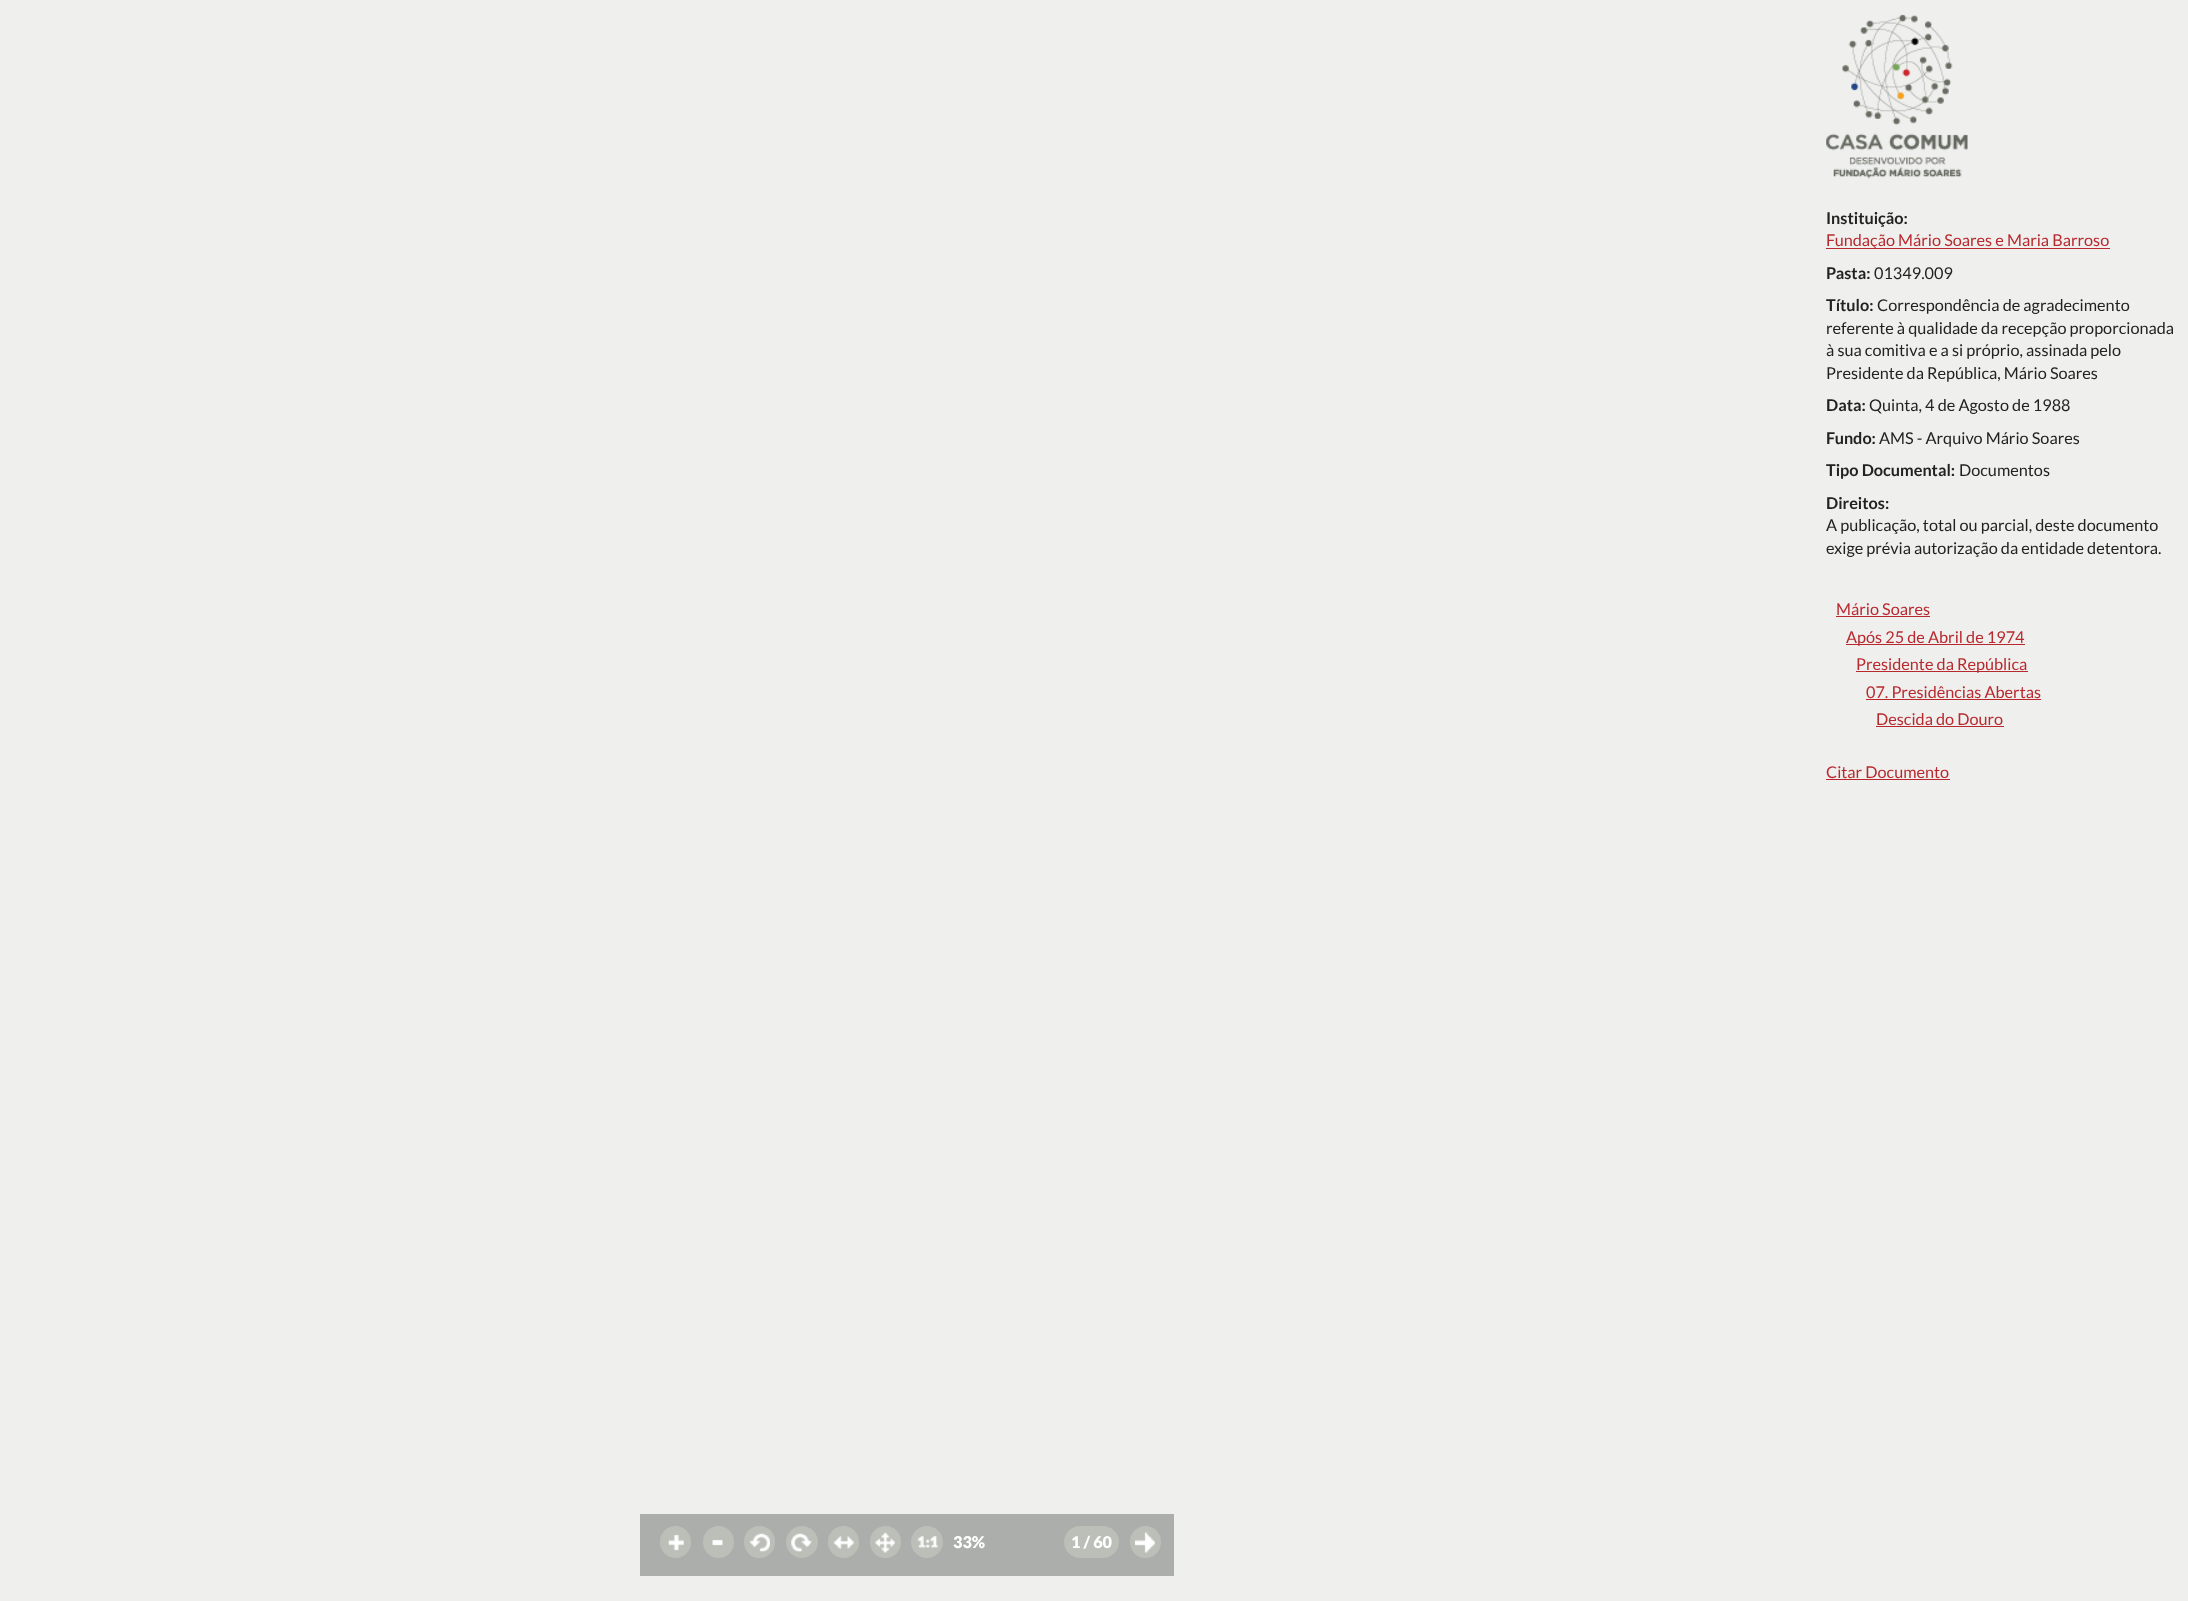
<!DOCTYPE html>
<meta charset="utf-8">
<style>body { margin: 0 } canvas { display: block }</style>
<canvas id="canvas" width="2188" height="1601"></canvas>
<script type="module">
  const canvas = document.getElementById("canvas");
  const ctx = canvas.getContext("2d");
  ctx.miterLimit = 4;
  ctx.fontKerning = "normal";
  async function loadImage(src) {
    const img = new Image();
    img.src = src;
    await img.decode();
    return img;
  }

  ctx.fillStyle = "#eff0ee";
  ctx.fillRect(0, 0, 2188, 1601);
  ctx.drawImage(await loadImage("img1.png"), 1826, 14, 142, 165);
  ctx.font = "bold 16.25px Lato";
  ctx.fillStyle = "#222222";
  ctx.fillText("Instituição:", 1826, 224);
  ctx.fillStyle = "#b8292f";
  ctx.fillRect(1826, 248, 284, 1);
  ctx.font = "16.25px Lato";
  ctx.fillText("Fundação Mário Soares e Maria Barroso", 1826, 246);
  ctx.font = "bold 16.25px Lato";
  ctx.fillStyle = "#222222";
  ctx.fillText("Pasta:", 1826, 279);
  ctx.font = "16.25px Lato";
  ctx.fillText("01349.009", 1874, 279);
  ctx.font = "bold 16.25px Lato";
  ctx.fillText("Título:", 1826, 311);
  ctx.font = "16.25px Lato";
  ctx.fillText("Correspondência de agradecimento", 1877, 311);
  ctx.fillText("referente à qualidade da recepção proporcionada", 1826, 334);
  ctx.fillText("à sua comitiva e a si próprio, assinada pelo", 1826, 356);
  ctx.fillText("Presidente da República, Mário Soares", 1826, 379);
  ctx.font = "bold 16.25px Lato";
  ctx.fillText("Data:", 1826, 411);
  ctx.font = "16.25px Lato";
  ctx.fillText("Quinta, 4 de Agosto de 1988", 1869, 411);
  ctx.font = "bold 16.25px Lato";
  ctx.fillText("Fundo:", 1826, 444);
  ctx.font = "16.25px Lato";
  ctx.fillText("AMS - Arquivo Mário Soares", 1879, 444);
  ctx.font = "bold 16.25px Lato";
  ctx.fillText("Tipo Documental:", 1826, 476);
  ctx.font = "16.25px Lato";
  ctx.fillText("Documentos", 1959, 476);
  ctx.font = "bold 16.25px Lato";
  ctx.fillText("Direitos:", 1826, 509);
  ctx.font = "16.25px Lato";
  ctx.fillText("A publicação, total ou parcial, deste documento", 1826, 531);
  ctx.fillText("exige prévia autorização da entidade detentora.", 1826, 554);
  ctx.fillStyle = "#b8292f";
  ctx.fillText("Mário Soares", 1836, 615);
  ctx.fillRect(1836, 616, 94, 1);
  ctx.fillRect(1846, 644, 179, 1);
  ctx.fillText("Após 25 de Abril de 1974", 1846, 643);
  ctx.fillRect(1856, 671, 172, 1);
  ctx.fillText("Presidente da República", 1856, 670);
  ctx.fillText("07. Presidências Abertas", 1866, 698);
  ctx.fillRect(1866, 699, 175, 1);
  ctx.fillText("Descida do Douro", 1876, 725);
  ctx.fillRect(1876, 726, 128, 1);
  ctx.fillText("Citar Documento", 1826, 778);
  ctx.fillRect(1826, 779, 124, 1);
  ctx.fillStyle = "#acaeac";
  ctx.fillRect(640, 1514, 534, 62);
  ctx.fillStyle = "#bcbeb8";
  ctx.beginPath();
  ctx.roundRect(660, 1526, 31, 32, 15.5);
  ctx.fill();
  ctx.drawImage(await loadImage("img2.png"), 668, 1534, 16, 17);
  ctx.beginPath();
  ctx.roundRect(703, 1526, 31, 32, 15.5);
  ctx.fill();
  ctx.drawImage(await loadImage("img3.png"), 712, 1539, 11, 7);
  ctx.beginPath();
  ctx.roundRect(744, 1526, 31, 32, 15.5);
  ctx.fill();
  ctx.drawImage(await loadImage("img4.png"), 750, 1533, 20, 19);
  ctx.beginPath();
  ctx.arc(802, 1542, 16, 0, Math.PI * 2);
  ctx.fill();
  ctx.drawImage(await loadImage("img5.png"), 791, 1533, 21, 19);
  ctx.beginPath();
  ctx.roundRect(828, 1526, 31, 32, 15.5);
  ctx.fill();
  ctx.drawImage(await loadImage("img6.png"), 833, 1536, 21, 13);
  ctx.beginPath();
  ctx.roundRect(870, 1526, 31, 32, 15.5);
  ctx.fill();
  ctx.drawImage(await loadImage("img7.png"), 875, 1532, 20, 21);
  ctx.beginPath();
  ctx.arc(927, 1542, 16, 0, Math.PI * 2);
  ctx.fill();
  ctx.drawImage(await loadImage("img8.png"), 917, 1536, 21, 12);
  ctx.font = "900 16.25px Lato";
  ctx.fillStyle = "#ffffff";
  ctx.fillText("33%", 953, 1548);
  ctx.fillStyle = "#bcbeb8";
  ctx.beginPath();
  ctx.roundRect(1064, 1526, 55, 32, 16);
  ctx.fill();
  ctx.fillStyle = "#ffffff";
  ctx.fillText("1 / 60", 1071, 1548);
  ctx.fillStyle = "#bcbeb8";
  ctx.beginPath();
  ctx.roundRect(1130, 1526, 31, 32, 15.5);
  ctx.fill();
  ctx.drawImage(await loadImage("img9.png"), 1135, 1532, 20, 21);
</script>
